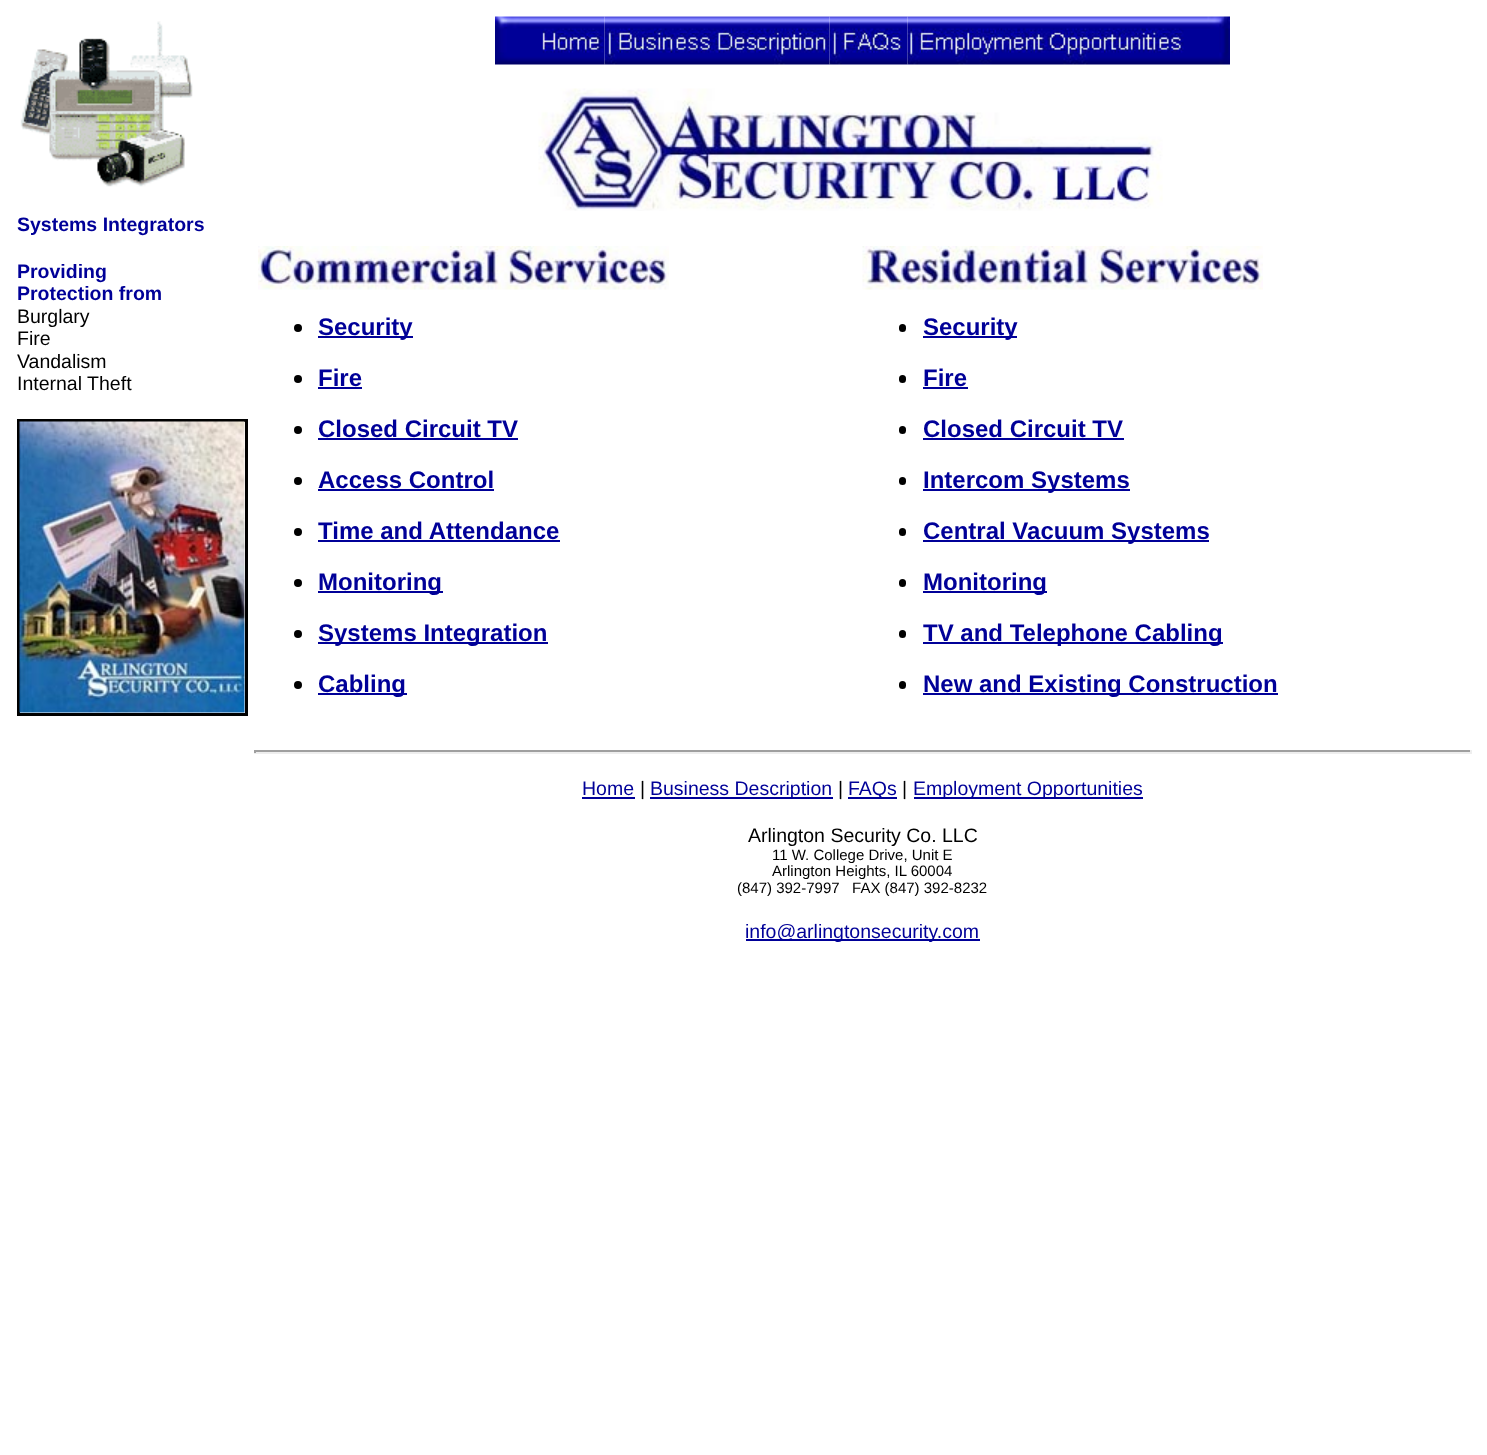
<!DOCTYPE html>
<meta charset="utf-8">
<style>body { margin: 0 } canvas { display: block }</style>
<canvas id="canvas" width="1487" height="1455"></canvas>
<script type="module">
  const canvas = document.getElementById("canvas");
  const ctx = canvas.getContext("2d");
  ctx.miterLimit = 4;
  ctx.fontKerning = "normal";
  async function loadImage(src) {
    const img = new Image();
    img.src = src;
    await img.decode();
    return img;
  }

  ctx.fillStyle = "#ffffff";
  ctx.fillRect(0, 0, 1487, 1455);
  ctx.drawImage(await loadImage("img1.png"), 20, 21, 173, 166);
  ctx.font = "bold 19.5px Liberation Sans";
  ctx.fillStyle = "#000098";
  ctx.fillText("Systems Integrators", 17, 231);
  ctx.fillText("Providing", 17, 278);
  ctx.fillText("Protection from", 17, 300);
  ctx.font = "19.5px Liberation Sans";
  ctx.fillStyle = "#000000";
  ctx.fillText("Burglary", 17, 323);
  ctx.fillText("Fire", 17, 345);
  ctx.fillText("Vandalism", 17, 368);
  ctx.fillText("Internal Theft", 17, 390);
  ctx.strokeStyle = "#000000";
  ctx.lineWidth = 3;
  ctx.strokeRect(18.5, 420.5, 228, 294);
  ctx.drawImage(await loadImage("img2.png"), 19, 421, 226, 292);
  ctx.drawImage(await loadImage("img3.png"), 495, 16, 110, 49);
  ctx.drawImage(await loadImage("img4.png"), 604, 16, 226, 49);
  ctx.drawImage(await loadImage("img5.png"), 829, 16, 79, 49);
  ctx.drawImage(await loadImage("img6.png"), 907, 16, 323, 49);
  ctx.drawImage(await loadImage("img7.png"), 538, 88, 625, 123);
  ctx.drawImage(await loadImage("img8.png"), 258, 246, 411, 44);
  ctx.beginPath();
  ctx.arc(298, 328, 4, 0, Math.PI * 2);
  ctx.fill();
  ctx.fillStyle = "#000098";
  ctx.fillRect(318, 336, 95, 2);
  ctx.font = "bold 24px Liberation Sans";
  ctx.fillText("Security", 318, 335);
  ctx.fillStyle = "#000000";
  ctx.beginPath();
  ctx.arc(298, 379, 4, 0, Math.PI * 2);
  ctx.fill();
  ctx.fillStyle = "#000098";
  ctx.fillText("Fire", 318, 386);
  ctx.fillRect(318, 387, 44, 2);
  ctx.fillStyle = "#000000";
  ctx.beginPath();
  ctx.arc(298, 430, 4, 0, Math.PI * 2);
  ctx.fill();
  ctx.fillStyle = "#000098";
  ctx.fillText("Closed Circuit TV", 318, 437);
  ctx.fillRect(318, 438, 200, 2);
  ctx.fillStyle = "#000000";
  ctx.beginPath();
  ctx.arc(298, 481, 4, 0, Math.PI * 2);
  ctx.fill();
  ctx.fillStyle = "#000098";
  ctx.fillText("Access Control", 318, 488);
  ctx.fillRect(318, 489, 176, 2);
  ctx.fillStyle = "#000000";
  ctx.beginPath();
  ctx.arc(298, 532, 4, 0, Math.PI * 2);
  ctx.fill();
  ctx.fillStyle = "#000098";
  ctx.fillText("Time and Attendance", 318, 539);
  ctx.fillRect(318, 540, 242, 2);
  ctx.fillStyle = "#000000";
  ctx.beginPath();
  ctx.arc(298, 583, 4, 0, Math.PI * 2);
  ctx.fill();
  ctx.fillStyle = "#000098";
  ctx.fillRect(318, 591, 125, 2);
  ctx.fillText("Monitoring", 318, 590);
  ctx.fillStyle = "#000000";
  ctx.beginPath();
  ctx.arc(298, 634, 4, 0, Math.PI * 2);
  ctx.fill();
  ctx.fillStyle = "#000098";
  ctx.fillRect(318, 642, 230, 2);
  ctx.fillText("Systems Integration", 318, 641);
  ctx.fillStyle = "#000000";
  ctx.beginPath();
  ctx.arc(298, 685, 4, 0, Math.PI * 2);
  ctx.fill();
  ctx.fillStyle = "#000098";
  ctx.fillRect(318, 693, 89, 2);
  ctx.fillText("Cabling", 318, 692);
  ctx.drawImage(await loadImage("img9.png"), 862, 246, 401, 44);
  ctx.fillStyle = "#000000";
  ctx.beginPath();
  ctx.roundRect(899, 324, 7, 8, 3.5);
  ctx.fill();
  ctx.fillStyle = "#000098";
  ctx.fillRect(923, 336, 94, 2);
  ctx.fillText("Security", 923, 335);
  ctx.fillStyle = "#000000";
  ctx.beginPath();
  ctx.roundRect(899, 375, 7, 8, 3.5);
  ctx.fill();
  ctx.fillStyle = "#000098";
  ctx.fillText("Fire", 923, 386);
  ctx.fillRect(923, 387, 45, 2);
  ctx.fillStyle = "#000000";
  ctx.beginPath();
  ctx.roundRect(899, 426, 7, 8, 3.5);
  ctx.fill();
  ctx.fillStyle = "#000098";
  ctx.fillText("Closed Circuit TV", 923, 437);
  ctx.fillRect(923, 438, 201, 2);
  ctx.fillStyle = "#000000";
  ctx.beginPath();
  ctx.roundRect(899, 477, 7, 8, 3.5);
  ctx.fill();
  ctx.fillStyle = "#000098";
  ctx.fillRect(923, 489, 207, 2);
  ctx.fillText("Intercom Systems", 923, 488);
  ctx.fillStyle = "#000000";
  ctx.beginPath();
  ctx.roundRect(899, 528, 7, 8, 3.5);
  ctx.fill();
  ctx.fillStyle = "#000098";
  ctx.fillRect(923, 540, 286, 2);
  ctx.fillText("Central Vacuum Systems", 923, 539);
  ctx.fillStyle = "#000000";
  ctx.beginPath();
  ctx.roundRect(899, 579, 7, 8, 3.5);
  ctx.fill();
  ctx.fillStyle = "#000098";
  ctx.fillRect(923, 591, 124, 2);
  ctx.fillText("Monitoring", 923, 590);
  ctx.fillStyle = "#000000";
  ctx.beginPath();
  ctx.roundRect(899, 630, 7, 8, 3.5);
  ctx.fill();
  ctx.fillStyle = "#000098";
  ctx.fillRect(923, 642, 300, 2);
  ctx.fillText("TV and Telephone Cabling", 923, 641);
  ctx.fillStyle = "#000000";
  ctx.beginPath();
  ctx.roundRect(899, 681, 7, 8, 3.5);
  ctx.fill();
  ctx.fillStyle = "#000098";
  ctx.fillRect(923, 693, 355, 2);
  ctx.fillText("New and Existing Construction", 923, 692);
  ctx.fillStyle = "#9f9f9f";
  ctx.fillRect(254, 750, 1218, 2);
  ctx.fillStyle = "#eeeeee";
  ctx.fillRect(1470, 750, 2, 3);
  ctx.fillRect(254, 752, 1218, 2);
  ctx.fillStyle = "#9f9f9f";
  ctx.fillRect(254, 750, 2, 3);
  ctx.font = "19.5px Liberation Sans";
  ctx.fillStyle = "#000098";
  ctx.fillText("Home", 582, 795);
  ctx.fillRect(582, 797, 53, 2);
  ctx.fillStyle = "#000000";
  ctx.fillText("|", 640, 795);
  ctx.fillStyle = "#000098";
  ctx.fillRect(650, 797, 183, 2);
  ctx.fillText("Business Description", 650, 795);
  ctx.fillStyle = "#000000";
  ctx.fillText("|", 838, 795);
  ctx.fillStyle = "#000098";
  ctx.fillRect(848, 797, 49, 2);
  ctx.fillText("FAQs", 848, 795);
  ctx.fillStyle = "#000000";
  ctx.fillText("|", 902, 795);
  ctx.fillStyle = "#000098";
  ctx.fillRect(914, 797, 229, 2);
  ctx.fillText("Employment Opportunities", 913, 795);
  ctx.fillStyle = "#000000";
  ctx.fillText("Arlington Security Co. LLC", 748, 842);
  ctx.font = "15px Liberation Sans";
  ctx.fillText("11 W. College Drive, Unit E", 772, 860);
  ctx.fillText("Arlington Heights, IL 60004", 772, 876);
  ctx.fillText("(847) 392-7997   FAX (847) 392-8232", 737, 893);
  ctx.fillStyle = "#000098";
  ctx.fillRect(746, 939, 234, 2);
  ctx.font = "19.5px Liberation Sans";
  ctx.fillText("info@arlingtonsecurity.com", 745, 938);
</script>
